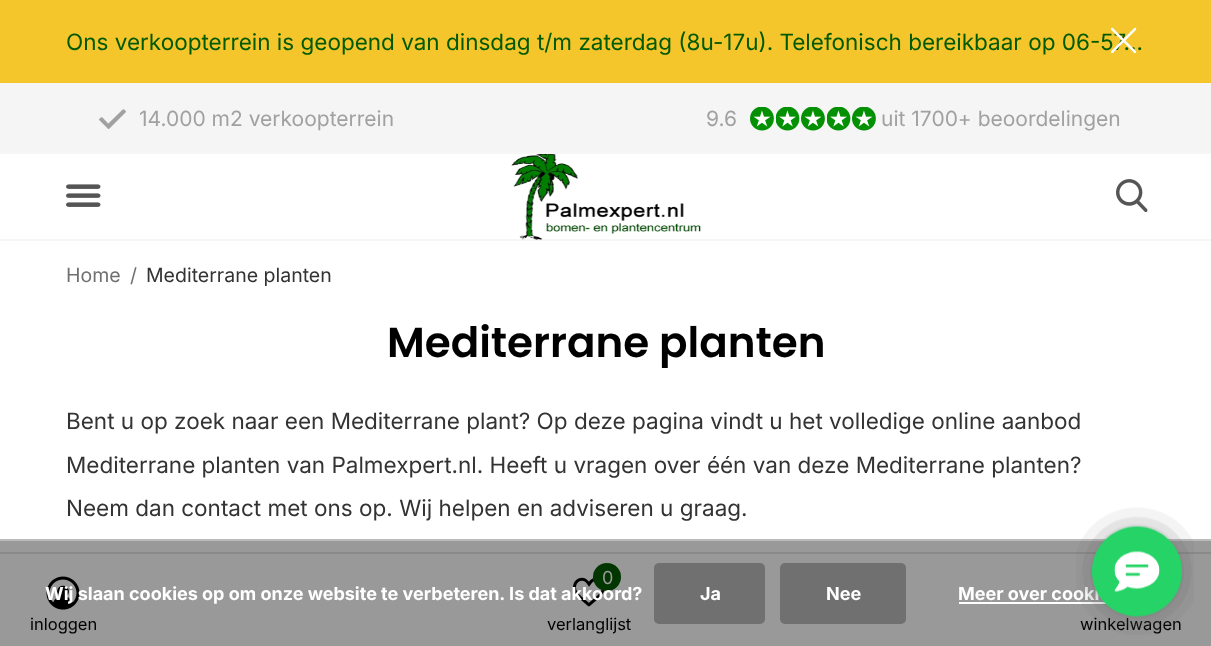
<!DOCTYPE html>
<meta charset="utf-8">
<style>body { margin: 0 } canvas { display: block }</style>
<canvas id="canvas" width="1211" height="646"></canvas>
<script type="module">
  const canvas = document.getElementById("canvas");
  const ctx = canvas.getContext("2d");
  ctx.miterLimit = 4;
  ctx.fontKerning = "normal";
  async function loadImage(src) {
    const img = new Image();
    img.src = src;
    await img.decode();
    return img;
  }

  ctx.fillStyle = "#ffffff";
  ctx.fillRect(0, 0, 1211, 646);
  ctx.fillStyle = "#999999";
  ctx.fillRect(0, 541, 1211, 11);
  ctx.fillStyle = "#f5c52c";
  ctx.fillRect(0, 0, 1211, 83);
  ctx.font = "22.5px Inter";
  ctx.fillStyle = "#015a01";
  ctx.fillText("Ons verkoopterrein is geopend van dinsdag t/m zaterdag (8u-17u). Telefonisch bereikbaar op 06-57…", 66, 50);
  ctx.drawImage(await loadImage("img1.png"), 1111, 27, 26, 27);
  ctx.fillStyle = "#f5f5f5";
  ctx.fillRect(0, 83, 1211, 69);
  ctx.fillStyle = "#f6f6f6";
  ctx.fillRect(0, 152, 1211, 2);
  ctx.drawImage(await loadImage("img2.png"), 99, 109, 27, 20);
  ctx.font = "21px Inter";
  ctx.fillStyle = "#a1a1a1";
  ctx.fillText("14.000 m2 verkoopterrein", 139, 126);
  ctx.fillText("9.6", 706, 126);
  ctx.drawImage(await loadImage("img3.png"), 750, 107, 24, 23);
  ctx.drawImage(await loadImage("img4.png"), 750, 107, 24, 24);
  ctx.drawImage(await loadImage("img5.png"), 776, 107, 23, 23);
  ctx.drawImage(await loadImage("img6.png"), 776, 107, 24, 24);
  ctx.drawImage(await loadImage("img3.png"), 801, 107, 24, 23);
  ctx.drawImage(await loadImage("img4.png"), 801, 107, 24, 24);
  ctx.drawImage(await loadImage("img5.png"), 827, 107, 23, 23);
  ctx.drawImage(await loadImage("img6.png"), 827, 107, 24, 24);
  ctx.drawImage(await loadImage("img3.png"), 852, 107, 24, 23);
  ctx.drawImage(await loadImage("img4.png"), 852, 107, 24, 24);
  ctx.fillText("uit 1700+ beoordelingen", 881, 126);
  ctx.drawImage(await loadImage("img7.png"), 66, 184, 35, 23);
  ctx.fillStyle = "#f6f6f6";
  ctx.fillRect(0, 239, 1211, 2);
  ctx.drawImage(await loadImage("img8.png"), 511, 154, 190, 86);
  ctx.drawImage(await loadImage("img9.png"), 1116, 179, 32, 33);
  ctx.font = "19.5px Inter";
  ctx.fillStyle = "#707070";
  ctx.fillText("Home", 66, 282);
  ctx.fillText("/", 130, 282);
  ctx.fillStyle = "#333333";
  ctx.fillText("Mediterrane planten", 146, 282);
  ctx.font = "600 42px Poppins";
  ctx.fillStyle = "#000000";
  ctx.fillText("Mediterrane planten", 387, 357);
  ctx.font = "22.5px Inter";
  ctx.fillStyle = "#333333";
  ctx.fillText("Bent u op zoek naar een Mediterrane plant? Op deze pagina vindt u het volledige online aanbod", 66, 429);
  ctx.fillText("Mediterrane planten van Palmexpert.nl. Heeft u vragen over één van deze Mediterrane planten?", 66, 473);
  ctx.fillText("Neem dan contact met ons op. Wij helpen en adviseren u graag.", 66, 516);
  ctx.fillStyle = "#999999";
  ctx.fillRect(0, 554, 1211, 92);
  ctx.fillStyle = "#898989";
  ctx.fillRect(0, 552, 1211, 2);
  ctx.drawImage(await loadImage("img10.png"), 46, 576, 34, 34);
  ctx.font = "16.5px Inter";
  ctx.fillStyle = "#000000";
  ctx.fillText("inloggen", 30, 630);
  ctx.drawImage(await loadImage("img11.png"), 573, 577, 32, 30);
  ctx.fillStyle = "#013601";
  ctx.beginPath();
  ctx.arc(607, 577, 14, 0, Math.PI * 2);
  ctx.fill();
  ctx.font = "18px Inter";
  ctx.fillStyle = "#999999";
  ctx.fillText("0", 602, 584);
  ctx.font = "16.5px Inter";
  ctx.fillStyle = "#000000";
  ctx.fillText("verlanglijst", 547, 630);
  ctx.fillText("winkelwagen", 1080, 630);
  ctx.fillStyle = "#bbbbbb";
  ctx.fillRect(0, 539, 1211, 2);
  ctx.font = "bold 18px Inter";
  ctx.fillStyle = "#ffffff";
  ctx.fillText("Wij slaan cookies op om onze website te verbeteren. Is dat akkoord?", 45, 600);
  ctx.fillStyle = "#707070";
  ctx.beginPath();
  ctx.roundRect(654, 563, 111, 61, 5);
  ctx.fill();
  ctx.fillStyle = "#ffffff";
  ctx.fillText("Ja", 700, 600);
  ctx.fillStyle = "#707070";
  ctx.beginPath();
  ctx.roundRect(780, 563, 126, 61, 5);
  ctx.fill();
  ctx.fillStyle = "#ffffff";
  ctx.fillText("Nee", 826, 600);
  ctx.fillText("Meer over cooki", 958, 600);
  ctx.fillRect(959, 602, 148, 2);
  ctx.drawImage(await loadImage("img12.png"), 1076, 507, 118, 128);
</script>
